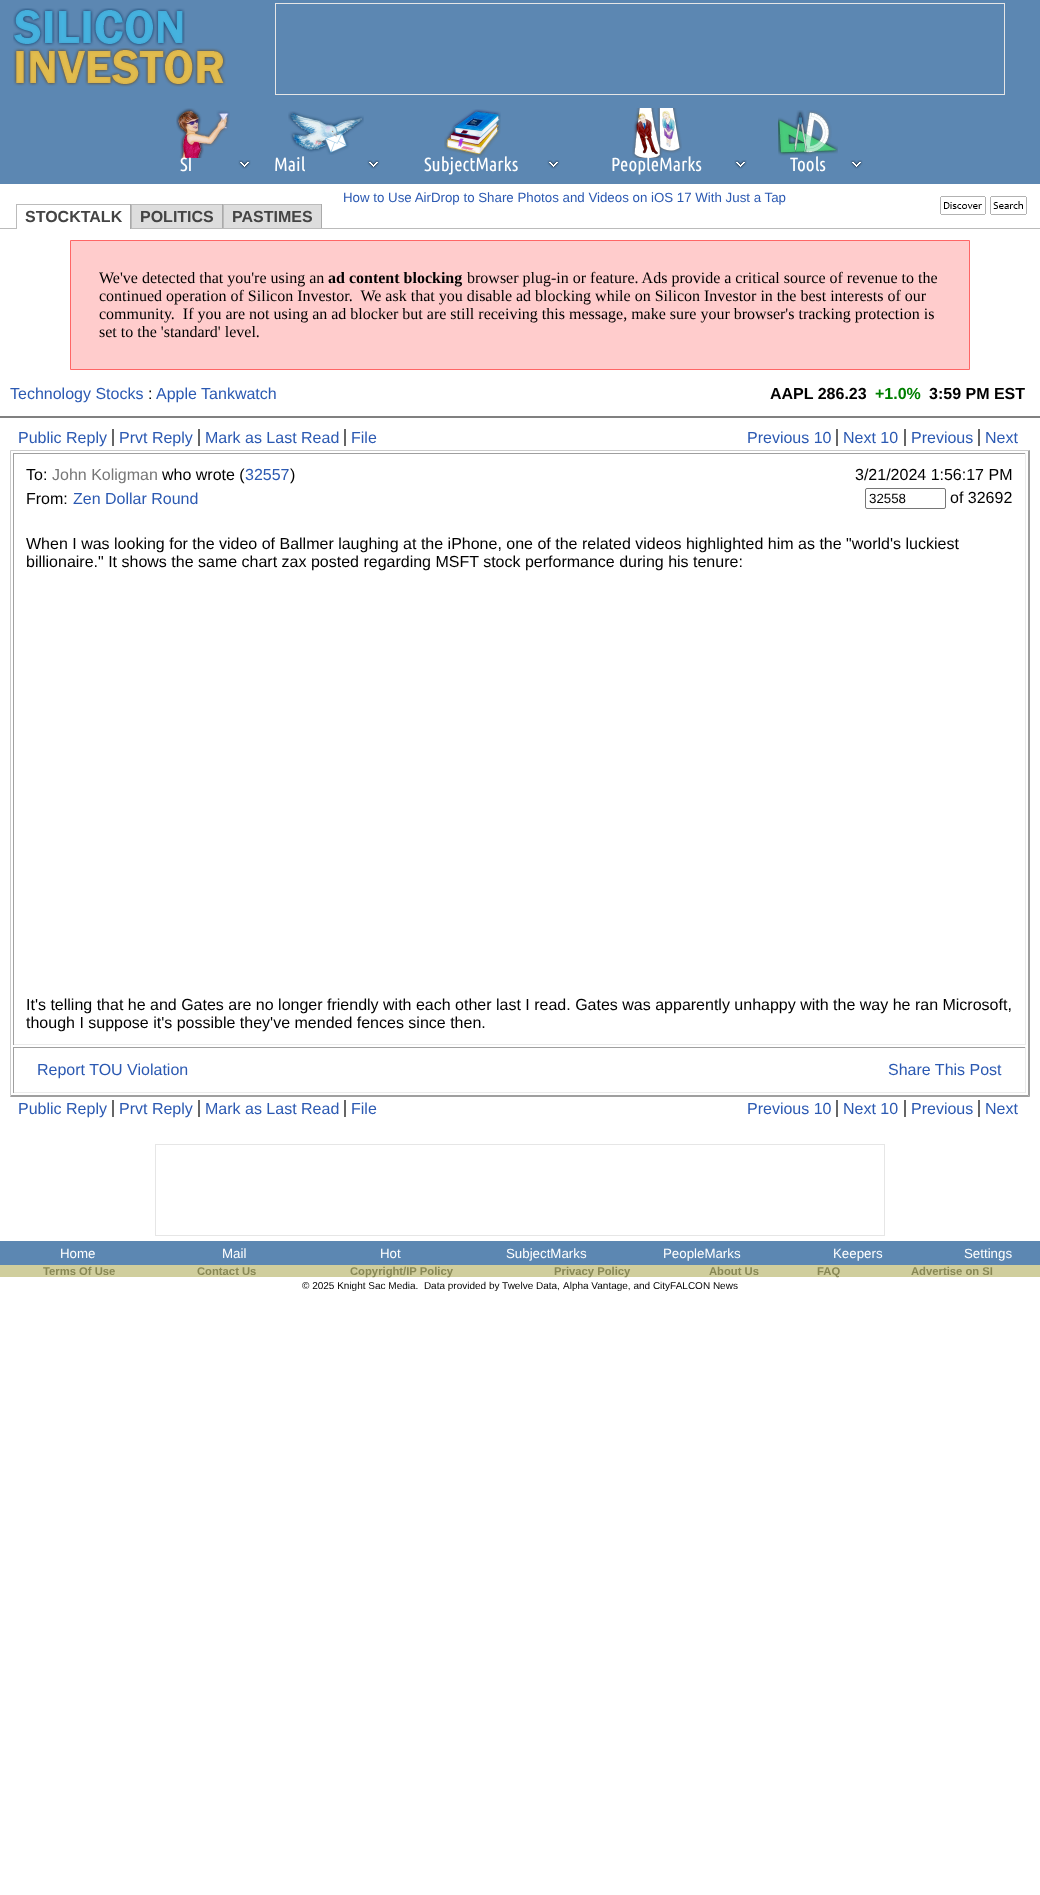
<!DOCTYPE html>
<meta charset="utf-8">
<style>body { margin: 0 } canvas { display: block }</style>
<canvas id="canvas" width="1040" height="1895"></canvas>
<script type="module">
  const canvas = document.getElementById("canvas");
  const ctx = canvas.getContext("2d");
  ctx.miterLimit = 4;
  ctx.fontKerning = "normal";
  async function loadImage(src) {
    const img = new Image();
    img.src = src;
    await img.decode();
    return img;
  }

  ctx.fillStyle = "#ffffff";
  ctx.fillRect(0, 0, 1040, 1895);
  ctx.fillStyle = "#5c87b2";
  ctx.fillRect(0, 0, 1040, 184);
  ctx.drawImage(await loadImage("img1.png"), 13, 8, 213, 79);
  ctx.strokeStyle = "#e6e6e6";
  ctx.strokeRect(275.5, 3.5, 729, 91);
  ctx.drawImage(await loadImage("img2.png"), 176, 108, 54, 50);
  ctx.drawImage(await loadImage("img3.png"), 238, 160, 13, 9);
  ctx.font = "19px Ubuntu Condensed";
  ctx.fillStyle = "#ffffff";
  ctx.fillText("SI", 180, 171);
  ctx.drawImage(await loadImage("img4.png"), 288, 111, 76, 44);
  ctx.drawImage(await loadImage("img3.png"), 367, 160, 13, 9);
  ctx.fillText("Mail", 274, 171);
  ctx.drawImage(await loadImage("img5.png"), 444, 109, 57, 48);
  ctx.drawImage(await loadImage("img3.png"), 547, 160, 13, 9);
  ctx.fillText("SubjectMarks", 424, 171);
  ctx.drawImage(await loadImage("img6.png"), 632, 108, 50, 50);
  ctx.drawImage(await loadImage("img3.png"), 734, 160, 13, 9);
  ctx.fillText("PeopleMarks", 611, 171);
  ctx.drawImage(await loadImage("img7.png"), 778, 110, 60, 46);
  ctx.drawImage(await loadImage("img3.png"), 850, 160, 13, 9);
  ctx.fillText("Tools", 790, 171);
  ctx.font = "13.3px Liberation Sans";
  ctx.fillStyle = "#2b59b2";
  ctx.fillText("How to Use AirDrop to Share Photos and Videos on iOS 17 With Just a Tap", 343, 202);
  ctx.drawImage(await loadImage("img8.png"), 940, 196, 46, 19);
  ctx.drawImage(await loadImage("img9.png"), 990, 196, 37, 19);
  ctx.fillStyle = "#bbbbbb";
  ctx.fillRect(16, 204, 306, 1);
  ctx.fillStyle = "#aaaaaa";
  ctx.fillRect(222, 204, 1, 25);
  ctx.fillStyle = "#bbbbbb";
  ctx.fillRect(131, 204, 1, 25);
  ctx.fillStyle = "#aaaaaa";
  ctx.fillRect(321, 204, 1, 25);
  ctx.fillStyle = "#bbbbbb";
  ctx.fillRect(223, 204, 1, 25);
  ctx.fillRect(0, 228, 1040, 1);
  ctx.fillStyle = "#ffffff";
  ctx.fillRect(17, 228, 113, 1);
  ctx.fillStyle = "#aaaaaa";
  ctx.fillRect(130, 204, 1, 25);
  ctx.fillStyle = "#bbbbbb";
  ctx.fillRect(16, 204, 1, 25);
  ctx.font = "bold 16px Liberation Sans";
  ctx.fillStyle = "#444444";
  ctx.fillText("STOCKTALK", 25, 222);
  ctx.fillStyle = "#dddddd";
  ctx.fillRect(132, 205, 90, 23);
  ctx.fillStyle = "#444444";
  ctx.fillText("POLITICS", 140, 222);
  ctx.fillStyle = "#dddddd";
  ctx.fillRect(224, 205, 97, 23);
  ctx.fillStyle = "#444444";
  ctx.fillText("PASTIMES", 232, 222);
  ctx.fillStyle = "#ffcccc";
  ctx.beginPath();
  ctx.rect(70.5, 240.5, 899, 129);
  ctx.fill();
  ctx.strokeStyle = "#ff6666";
  ctx.stroke();
  ctx.font = "16px Liberation Serif";
  ctx.fillStyle = "#000000";
  ctx.fillText("We've detected that you're using an", 99, 283);
  ctx.font = "bold 16px Liberation Serif";
  ctx.fillText("ad content blocking", 328, 283);
  ctx.font = "16px Liberation Serif";
  ctx.fillText("browser plug-in or feature. Ads provide a critical source of revenue to the", 467, 283);
  ctx.fillText("continued operation of Silicon Investor.  We ask that you disable ad blocking while on Silicon Investor in the best interests of our", 99, 301);
  ctx.fillText("community.  If you are not using an ad blocker but are still receiving this message, make sure your browser's tracking protection is", 99, 319);
  ctx.fillText("set to the 'standard' level.", 99, 337);
  ctx.font = "16px Liberation Sans";
  ctx.fillStyle = "#2b59b2";
  ctx.fillText("Technology Stocks", 10, 399);
  ctx.fillStyle = "#000000";
  ctx.fillText(":", 148, 399);
  ctx.fillStyle = "#2b59b2";
  ctx.fillText("Apple Tankwatch", 156, 399);
  ctx.font = "bold 16px Liberation Sans";
  ctx.fillStyle = "#000000";
  ctx.fillText("AAPL 286.23", 770, 399);
  ctx.fillStyle = "#008000";
  ctx.fillText("+1.0%", 875, 399);
  ctx.fillStyle = "#000000";
  ctx.fillText("3:59 PM EST", 929, 399);
  ctx.fillStyle = "#808080";
  ctx.fillRect(0, 416, 1040, 2);
  ctx.font = "16px Liberation Sans";
  ctx.fillStyle = "#2b59b2";
  ctx.fillText("Public Reply", 18, 443);
  ctx.fillText("Prvt Reply", 119, 443);
  ctx.fillStyle = "#666666";
  ctx.fillRect(112, 429, 2, 17);
  ctx.fillStyle = "#2b59b2";
  ctx.fillText("Mark as Last Read", 205, 443);
  ctx.fillStyle = "#666666";
  ctx.fillRect(198, 429, 2, 17);
  ctx.fillStyle = "#2b59b2";
  ctx.fillText("File", 351, 443);
  ctx.fillStyle = "#666666";
  ctx.fillRect(344, 429, 2, 17);
  ctx.fillStyle = "#2b59b2";
  ctx.fillText("Previous 10", 747, 443);
  ctx.fillStyle = "#666666";
  ctx.fillRect(836, 429, 2, 17);
  ctx.fillStyle = "#2b59b2";
  ctx.fillText("Next 10", 843, 443);
  ctx.fillStyle = "#666666";
  ctx.fillRect(904, 429, 2, 17);
  ctx.fillStyle = "#2b59b2";
  ctx.fillText("Previous", 911, 443);
  ctx.fillStyle = "#666666";
  ctx.fillRect(978, 429, 2, 17);
  ctx.fillStyle = "#2b59b2";
  ctx.fillText("Next", 985, 443);
  ctx.fillStyle = "#cbcbcb";
  ctx.beginPath();
  ctx.moveTo(10, 450);
  ctx.lineTo(1030, 450);
  ctx.lineTo(1028, 451);
  ctx.lineTo(11, 451);
  ctx.closePath();
  ctx.fill();
  ctx.fillStyle = "#9f9f9f";
  ctx.beginPath();
  ctx.moveTo(1030, 450);
  ctx.lineTo(1030, 1097);
  ctx.lineTo(1028, 1095);
  ctx.lineTo(1028, 451);
  ctx.closePath();
  ctx.fill();
  ctx.beginPath();
  ctx.moveTo(1030, 1097);
  ctx.lineTo(10, 1097);
  ctx.lineTo(11, 1095);
  ctx.lineTo(1028, 1095);
  ctx.closePath();
  ctx.fill();
  ctx.fillStyle = "#cbcbcb";
  ctx.beginPath();
  ctx.moveTo(10, 1097);
  ctx.lineTo(10, 450);
  ctx.lineTo(11, 451);
  ctx.lineTo(11, 1095);
  ctx.closePath();
  ctx.fill();
  ctx.fillStyle = "#9f9f9f";
  ctx.fillRect(13, 453, 1013, 1);
  ctx.fillStyle = "#ebebeb";
  ctx.fillRect(1025, 453, 1, 592);
  ctx.fillRect(13, 1044, 1013, 1);
  ctx.fillStyle = "#9f9f9f";
  ctx.fillRect(13, 453, 1, 592);
  ctx.fillStyle = "#000000";
  ctx.fillText("To:", 26, 480);
  ctx.fillStyle = "#777777";
  ctx.fillText("John Koligman", 52, 480);
  ctx.fillStyle = "#000000";
  ctx.fillText("who wrote (", 162, 480);
  ctx.fillStyle = "#2b59b2";
  ctx.fillText("32557", 245, 480);
  ctx.fillStyle = "#000000";
  ctx.fillText(")", 290, 480);
  ctx.fillText("3/21/2024 1:56:17 PM", 855, 480);
  ctx.fillText("From:", 26, 504);
  ctx.fillStyle = "#2b59b2";
  ctx.fillText("Zen Dollar Round", 73, 504);
  ctx.beginPath();
  ctx.roundRect(865.5, 488.5, 80, 20, 1.5);
  ctx.strokeStyle = "#767676";
  ctx.stroke();
  ctx.font = "13.3px Liberation Sans";
  ctx.fillStyle = "#000000";
  ctx.fillText("32558", 869, 503);
  ctx.font = "16px Liberation Sans";
  ctx.fillText("of 32692", 950, 503);
  ctx.fillText("When I was looking for the video of Ballmer laughing at the iPhone, one of the related videos highlighted him as the \"world's luckiest", 26, 549);
  ctx.fillText("billionaire.\" It shows the same chart zax posted regarding MSFT stock performance during his tenure:", 26, 567);
  ctx.fillText("It's telling that he and Gates are no longer friendly with each other last I read. Gates was apparently unhappy with the way he ran Microsoft,", 26, 1010);
  ctx.fillText("though I suppose it's possible they've mended fences since then.", 26, 1028);
  ctx.fillStyle = "#9f9f9f";
  ctx.fillRect(13, 1047, 1013, 1);
  ctx.fillStyle = "#ebebeb";
  ctx.fillRect(1025, 1047, 1, 46);
  ctx.fillRect(13, 1092, 1013, 1);
  ctx.fillStyle = "#9f9f9f";
  ctx.fillRect(13, 1047, 1, 46);
  ctx.fillStyle = "#2b59b2";
  ctx.fillText("Report TOU Violation", 37, 1075);
  ctx.fillText("Share This Post", 888, 1075);
  ctx.fillText("Public Reply", 18, 1114);
  ctx.fillText("Prvt Reply", 119, 1114);
  ctx.fillStyle = "#666666";
  ctx.fillRect(112, 1100, 2, 17);
  ctx.fillStyle = "#2b59b2";
  ctx.fillText("Mark as Last Read", 205, 1114);
  ctx.fillStyle = "#666666";
  ctx.fillRect(198, 1100, 2, 17);
  ctx.fillStyle = "#2b59b2";
  ctx.fillText("File", 351, 1114);
  ctx.fillStyle = "#666666";
  ctx.fillRect(344, 1100, 2, 17);
  ctx.fillStyle = "#2b59b2";
  ctx.fillText("Previous 10", 747, 1114);
  ctx.fillStyle = "#666666";
  ctx.fillRect(836, 1100, 2, 17);
  ctx.fillStyle = "#2b59b2";
  ctx.fillText("Next 10", 843, 1114);
  ctx.fillStyle = "#666666";
  ctx.fillRect(904, 1100, 2, 17);
  ctx.fillStyle = "#2b59b2";
  ctx.fillText("Previous", 911, 1114);
  ctx.fillStyle = "#666666";
  ctx.fillRect(978, 1100, 2, 17);
  ctx.fillStyle = "#2b59b2";
  ctx.fillText("Next", 985, 1114);
  ctx.strokeStyle = "#e6e6e6";
  ctx.strokeRect(155.5, 1144.5, 729, 91);
  ctx.fillStyle = "#5c87b2";
  ctx.fillRect(0, 1241, 1040, 24);
  ctx.font = "13.3px Liberation Sans";
  ctx.fillStyle = "#ffffff";
  ctx.fillText("Home", 60, 1258);
  ctx.fillText("Mail", 222, 1258);
  ctx.fillText("Hot", 380, 1258);
  ctx.fillText("SubjectMarks", 506, 1258);
  ctx.fillText("PeopleMarks", 663, 1258);
  ctx.fillText("Keepers", 833, 1258);
  ctx.fillText("Settings", 964, 1258);
  ctx.fillStyle = "#d0ce9d";
  ctx.fillRect(0, 1265, 1040, 12);
  ctx.font = "bold 11.25px Liberation Sans";
  ctx.fillStyle = "#888855";
  ctx.fillText("Terms Of Use", 43, 1275);
  ctx.fillText("Contact Us", 197, 1275);
  ctx.fillText("Copyright/IP Policy", 350, 1275);
  ctx.fillText("Privacy Policy", 554, 1275);
  ctx.fillText("About Us", 709, 1275);
  ctx.fillText("FAQ", 817, 1275);
  ctx.fillText("Advertise on SI", 911, 1275);
  ctx.font = "10px Liberation Sans";
  ctx.fillStyle = "#000000";
  ctx.fillText("© 2025 Knight Sac Media.  Data provided by Twelve Data,", 302, 1289);
  ctx.fillText("Alpha Vantage, and CityFALCON News", 563, 1289);
</script>
